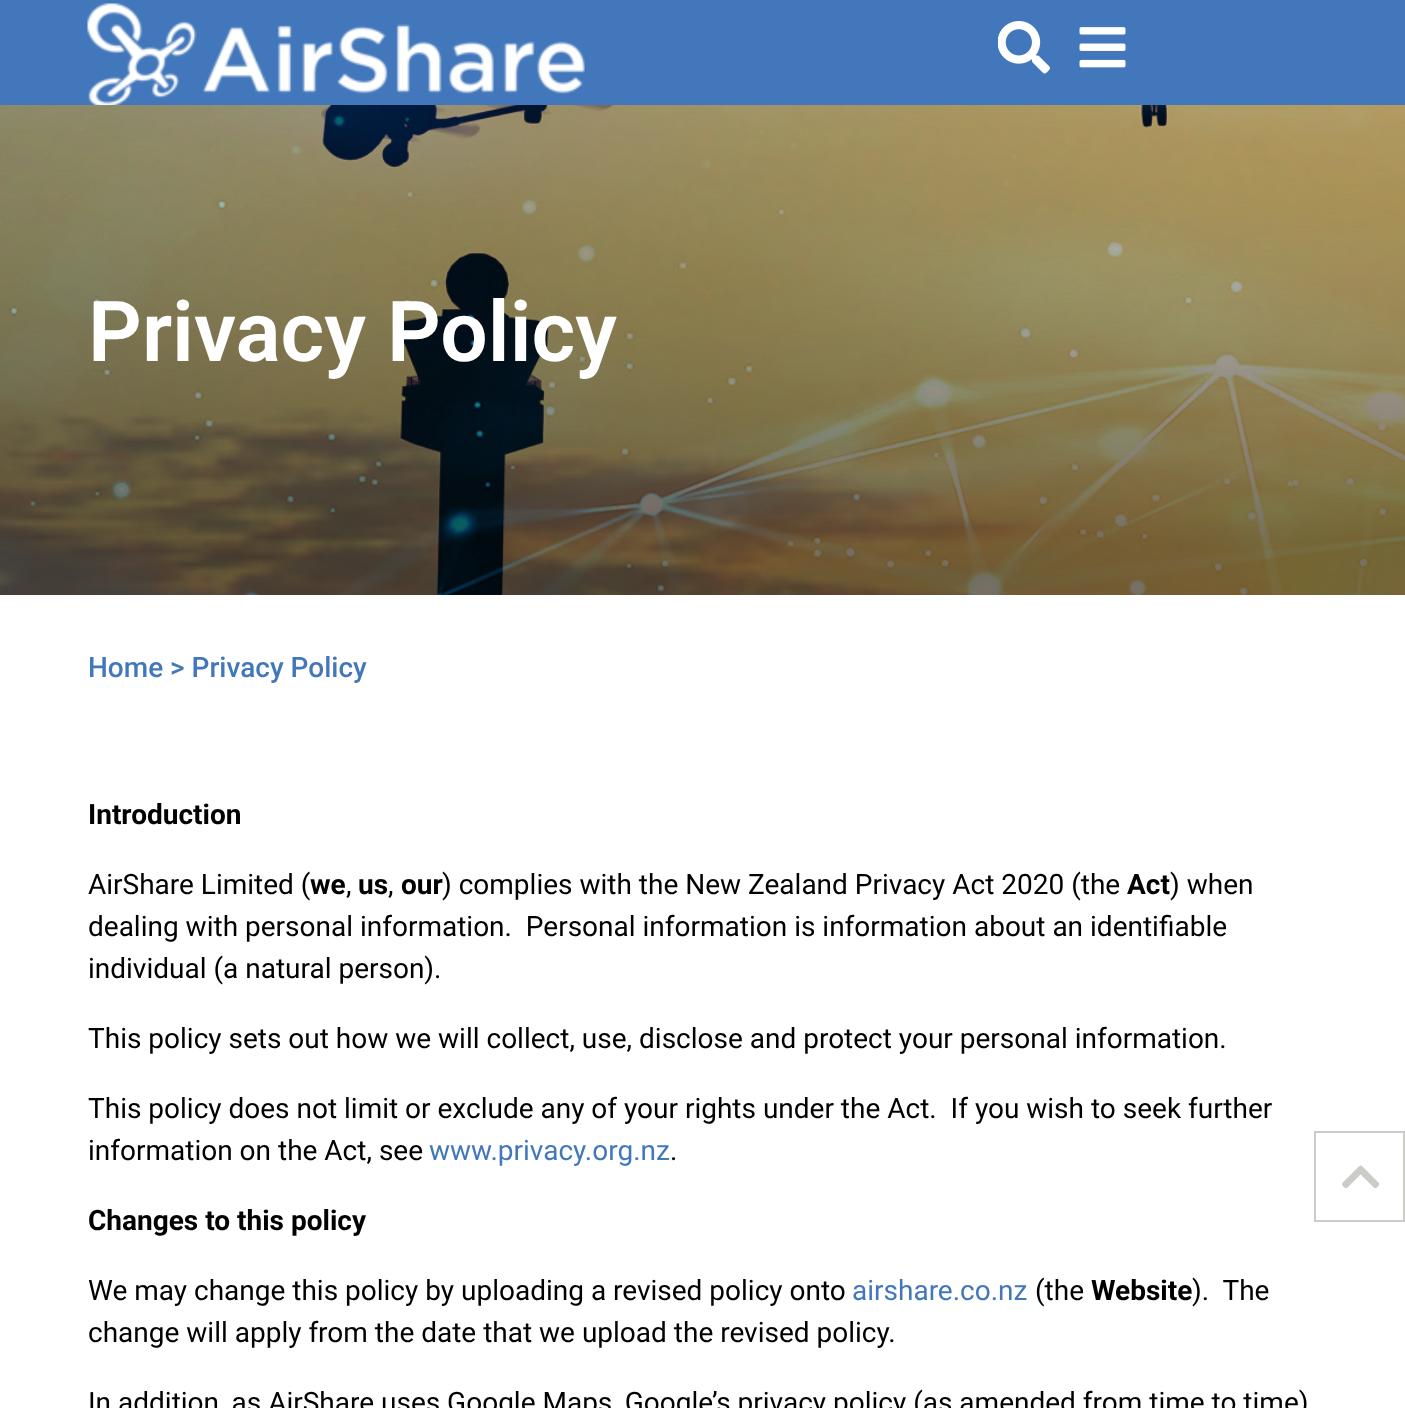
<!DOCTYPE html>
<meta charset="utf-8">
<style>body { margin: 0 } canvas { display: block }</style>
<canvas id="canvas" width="1405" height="1408"></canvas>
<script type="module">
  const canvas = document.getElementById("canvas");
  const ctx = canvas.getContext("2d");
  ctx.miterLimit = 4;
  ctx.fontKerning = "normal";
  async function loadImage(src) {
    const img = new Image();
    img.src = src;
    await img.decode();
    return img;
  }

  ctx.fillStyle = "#ffffff";
  ctx.fillRect(0, 0, 1405, 1408);
  ctx.fillStyle = "#4377bb";
  ctx.fillRect(0, 0, 1405, 105);
  ctx.drawImage(await loadImage("img1.png"), 87, 3, 498, 102);
  ctx.drawImage(await loadImage("img2.png"), 998, 21, 52, 53);
  ctx.drawImage(await loadImage("img3.png"), 1079, 27, 47, 41);
  ctx.drawImage(await loadImage("img4.png"), 0, 105, 1405, 490);
  ctx.font = "600 84px Roboto";
  ctx.fillStyle = "#ffffff";
  ctx.fillText("Privacy Policy", 88, 361);
  ctx.font = "500 28px Roboto";
  ctx.fillStyle = "#4377bb";
  ctx.fillText("Home > Privacy Policy", 88, 677);
  ctx.font = "bold 28px Roboto";
  ctx.fillStyle = "#000000";
  ctx.fillText("Introduction", 88, 824);
  ctx.font = "28px Roboto";
  ctx.fillText("AirShare Limited (", 88, 894);
  ctx.font = "bold 28px Roboto";
  ctx.fillText("we", 310, 894);
  ctx.font = "28px Roboto";
  ctx.fillText(",", 346, 894);
  ctx.font = "bold 28px Roboto";
  ctx.fillText("us", 358, 894);
  ctx.font = "28px Roboto";
  ctx.fillText(",", 388, 894);
  ctx.font = "bold 28px Roboto";
  ctx.fillText("our", 401, 894);
  ctx.font = "28px Roboto";
  ctx.fillText(") complies with the New Zealand Privacy Act 2020 (the", 442, 894);
  ctx.font = "bold 28px Roboto";
  ctx.fillText("Act", 1127, 894);
  ctx.font = "28px Roboto";
  ctx.fillText(") when", 1170, 894);
  ctx.fillText("dealing with personal information.  Personal information is information about an identifiable", 88, 936);
  ctx.fillText("individual (a natural person).", 88, 978);
  ctx.fillText("This policy sets out how we will collect, use, disclose and protect your personal information.", 88, 1048);
  ctx.fillText("This policy does not limit or exclude any of your rights under the Act.  If you wish to seek further", 88, 1118);
  ctx.fillText("information on the Act, see", 88, 1160);
  ctx.fillStyle = "#4377bb";
  ctx.fillText("www.privacy.org.nz", 429, 1160);
  ctx.fillStyle = "#000000";
  ctx.fillText(".", 670, 1160);
  ctx.font = "bold 28px Roboto";
  ctx.fillText("Changes to this policy", 88, 1230);
  ctx.font = "28px Roboto";
  ctx.fillText("We may change this policy by uploading a revised policy onto", 88, 1300);
  ctx.fillStyle = "#4377bb";
  ctx.fillText("airshare.co.nz", 852, 1300);
  ctx.fillStyle = "#000000";
  ctx.fillText("(the", 1035, 1300);
  ctx.font = "bold 28px Roboto";
  ctx.fillText("Website", 1091, 1300);
  ctx.font = "28px Roboto";
  ctx.fillText(").  The", 1192, 1300);
  ctx.fillText("change will apply from the date that we upload the revised policy.", 88, 1342);
  ctx.fillText("In addition, as AirShare uses Google Maps, Google’s privacy policy (as amended from time to time)", 88, 1412);
  ctx.strokeStyle = "#cbcbc8";
  ctx.lineWidth = 2;
  ctx.strokeRect(1315, 1132, 89, 89);
  ctx.drawImage(await loadImage("img5.png"), 1342, 1165, 38, 24);
</script>
